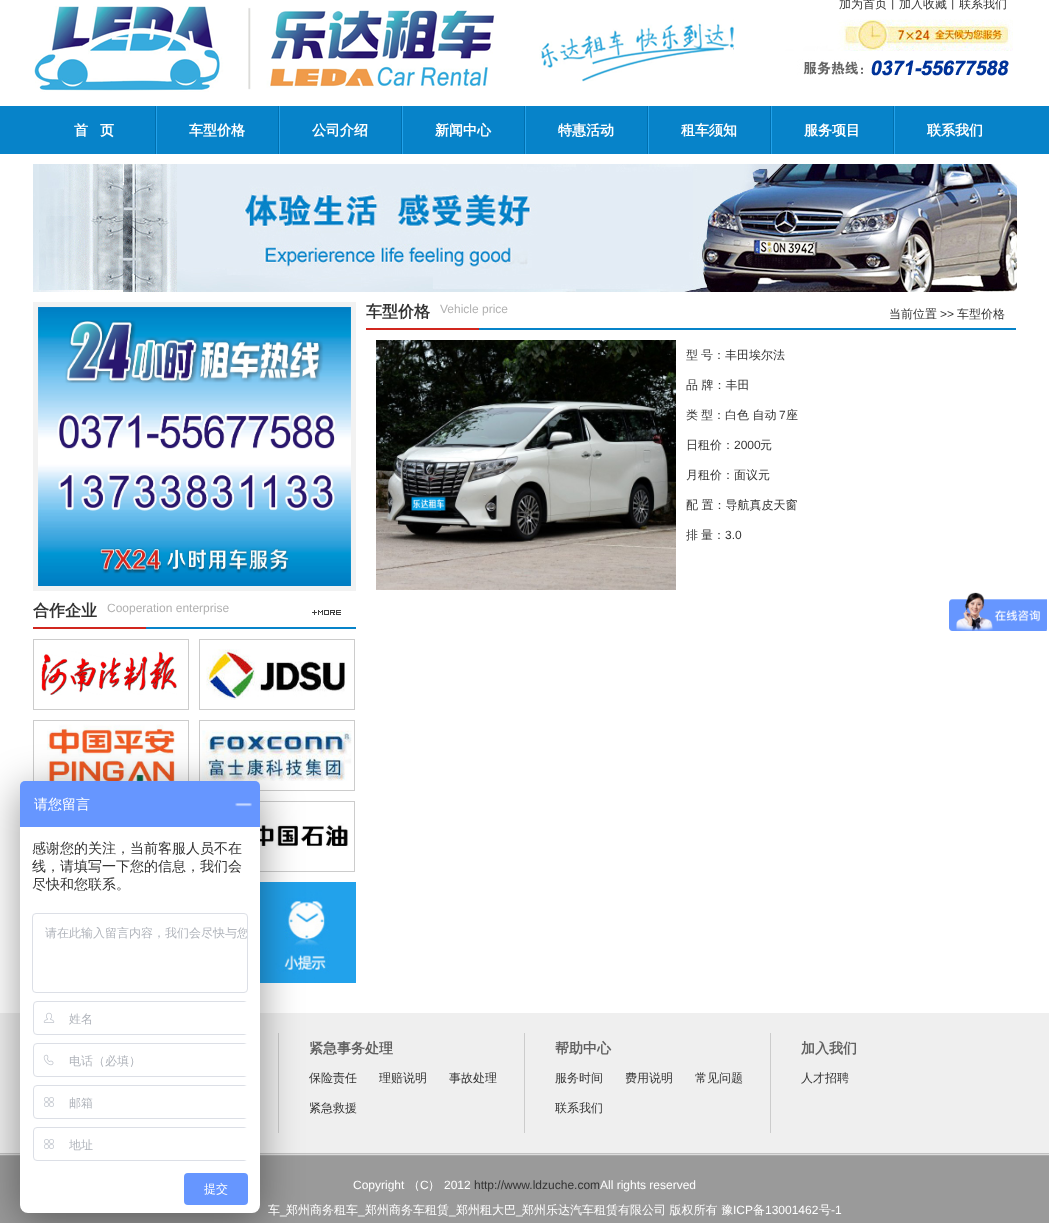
<!DOCTYPE html>
<meta charset="utf-8">
<style>body { margin: 0 } canvas { display: block }</style>
<canvas id="canvas" width="1049" height="1223"></canvas>
<script type="module">
  const canvas = document.getElementById("canvas");
  const ctx = canvas.getContext("2d");
  ctx.miterLimit = 4;
  ctx.fontKerning = "normal";
  async function loadImage(src) {
    const img = new Image();
    img.src = src;
    await img.decode();
    return img;
  }

  ctx.fillStyle = "#ffffff";
  ctx.fillRect(0, 0, 1049, 1223);
  ctx.drawImage(await loadImage("img1.png"), 539, 19, 474, 63);
  ctx.font = "500 12px WenQuanYi Zen Hei";
  ctx.fillStyle = "#333333";
  ctx.fillText("加为首页丨加入收藏丨联系我们", 839, 8);
  ctx.drawImage(await loadImage("img2.png"), 34, 6, 463, 86);
  ctx.fillStyle = "#0783c9";
  ctx.fillRect(0, 106, 1049, 48);
  ctx.drawImage(await loadImage("img3.png"), 155, 106, 740, 48);
  ctx.font = "bold 14px WenQuanYi Zen Hei";
  ctx.fillStyle = "#ffffff";
  ctx.fillText("首", 74, 135);
  ctx.fillText("页", 100, 135);
  ctx.fillText("车型价格", 189, 135);
  ctx.fillText("公司介绍", 312, 135);
  ctx.fillText("新闻中心", 435, 135);
  ctx.fillText("特惠活动", 558, 135);
  ctx.fillText("租车须知", 681, 135);
  ctx.fillText("服务项目", 804, 135);
  ctx.fillText("联系我们", 927, 135);
  ctx.drawImage(await loadImage("img4.png"), 33, 164, 984, 128);
  ctx.drawImage(await loadImage("img5.png"), 366, 328, 650, 2);
  ctx.font = "bold 16px WenQuanYi Zen Hei";
  ctx.fillStyle = "#333333";
  ctx.fillText("车型价格", 366, 317);
  ctx.font = "12px Liberation Sans";
  ctx.fillStyle = "#b1b1b1";
  ctx.fillText("Vehicle price", 440, 313);
  ctx.font = "500 12px WenQuanYi Zen Hei";
  ctx.fillStyle = "#333333";
  ctx.fillText("当前位置", 889, 318);
  ctx.font = "12px Liberation Sans";
  ctx.fillText(">>", 940, 318);
  ctx.font = "500 12px WenQuanYi Zen Hei";
  ctx.fillText("车型价格", 957, 318);
  ctx.drawImage(await loadImage("img6.png"), 376, 340, 300, 250);
  ctx.save();
  ctx.beginPath();
  ctx.rect(686, 340, 320, 250);
  ctx.clip();
  ctx.fillText("型", 686, 359);
  ctx.restore();
  ctx.fillText("号：丰田埃尔法", 701, 359);
  ctx.fillText("品 牌：丰田", 686, 389);
  ctx.fillText("类", 686, 419);
  ctx.fillText("型：白色 自动", 701, 419);
  ctx.font = "12px Liberation Sans";
  ctx.fillText("7", 779, 419);
  ctx.font = "500 12px WenQuanYi Zen Hei";
  ctx.fillText("座", 786, 419);
  ctx.fillText("日租价：", 686, 449);
  ctx.font = "12px Liberation Sans";
  ctx.fillText("2000", 734, 449);
  ctx.font = "500 12px WenQuanYi Zen Hei";
  ctx.fillText("元", 760, 449);
  ctx.fillText("月租价：面议元", 686, 479);
  ctx.fillText("配 置：导航真皮天窗", 686, 509);
  ctx.save();
  ctx.beginPath();
  ctx.rect(686, 340, 320, 250);
  ctx.clip();
  ctx.fillText("排", 686, 539);
  ctx.restore();
  ctx.fillText("量：", 701, 539);
  ctx.font = "12px Liberation Sans";
  ctx.fillText("3.0", 725, 539);
  ctx.fillStyle = "#f2f2f2";
  ctx.fillRect(33, 302, 323, 289);
  ctx.drawImage(await loadImage("img7.png"), 38, 307, 313, 279);
  ctx.drawImage(await loadImage("img8.png"), 33, 627, 323, 2);
  ctx.font = "bold 16px WenQuanYi Zen Hei";
  ctx.fillStyle = "#333333";
  ctx.fillText("合作企业", 33, 616);
  ctx.font = "12px Liberation Sans";
  ctx.fillStyle = "#b1b1b1";
  ctx.fillText("Cooperation enterprise", 107, 612);
  ctx.drawImage(await loadImage("img9.png"), 312, 610, 29, 5);
  ctx.strokeStyle = "#cccccc";
  ctx.strokeRect(33.5, 639.5, 155, 70);
  ctx.drawImage(await loadImage("img10.png"), 41, 651, 136, 44);
  ctx.strokeRect(199.5, 639.5, 155, 70);
  ctx.drawImage(await loadImage("img11.png"), 206, 649, 139, 51);
  ctx.strokeRect(33.5, 720.5, 155, 70);
  ctx.drawImage(await loadImage("img12.png"), 47, 724, 128, 57);
  ctx.strokeRect(199.5, 720.5, 155, 70);
  ctx.drawImage(await loadImage("img13.png"), 202, 730, 150, 51);
  ctx.strokeRect(199.5, 801.5, 155, 70);
  ctx.drawImage(await loadImage("img14.png"), 260, 811, 89, 48);
  ctx.drawImage(await loadImage("img15.png"), 260, 882, 96, 101);
  ctx.drawImage(await loadImage("img16.png"), 949, 592, 98, 39);
  ctx.fillStyle = "#efefef";
  ctx.fillRect(0, 1013, 1049, 140);
  ctx.fillStyle = "#cccccc";
  ctx.fillRect(278, 1033, 1, 100);
  ctx.drawImage(await loadImage("img21.png"), 0, 1153, 1049, 70);
  ctx.fillStyle = "rgba(0, 0, 0, 0.4)";
  ctx.filter = "blur(20px)";
  ctx.beginPath();
  ctx.roundRect(20, 789, 240, 432, 8);
  ctx.fill();
  ctx.filter = "none";
  ctx.fillStyle = "#ffffff";
  ctx.beginPath();
  ctx.roundRect(20, 781, 240, 432, 8);
  ctx.fill();
  ctx.fillStyle = "#6696ff";
  ctx.beginPath();
  ctx.roundRect(20, 781, 240, 46, [5, 5, 0, 0]);
  ctx.fill();
  ctx.font = "500 14px WenQuanYi Zen Hei";
  ctx.fillStyle = "#ffffff";
  ctx.fillText("请您留言", 34, 809);
  ctx.drawImage(await loadImage("img17.png"), 235, 803, 17, 4);
  ctx.fillStyle = "#333333";
  ctx.fillText("感谢您的关注，当前客服人员不在", 32, 853);
  ctx.fillText("线，请填写一下您的信息，我们会", 32, 871);
  ctx.fillText("尽快和您联系。", 32, 889);
  ctx.beginPath();
  ctx.roundRect(32.5, 913.5, 215, 79, 3.5);
  ctx.strokeStyle = "#dcdfe6";
  ctx.stroke();
  ctx.save();
  ctx.beginPath();
  ctx.roundRect(33, 914, 214, 78, 3);
  ctx.clip();
  ctx.font = "500 12px WenQuanYi Zen Hei";
  ctx.fillStyle = "#b0b4bb";
  ctx.fillText("请在此输入留言内容，我们会尽快与您", 45, 937);
  ctx.restore();
  ctx.beginPath();
  ctx.roundRect(33.5, 1001.5, 214, 33, 3.5);
  ctx.stroke();
  ctx.drawImage(await loadImage("img18.png"), 43, 1012, 12, 11);
  ctx.fillStyle = "#ffffff";
  ctx.fillRect(244, 1002, 4, 32);
  ctx.font = "500 12px WenQuanYi Zen Hei";
  ctx.fillStyle = "#b0b4bb";
  ctx.fillText("姓名", 69, 1023);
  ctx.beginPath();
  ctx.roundRect(33.5, 1043.5, 214, 33, 3.5);
  ctx.stroke();
  ctx.drawImage(await loadImage("img19.png"), 43, 1054, 11, 12);
  ctx.fillStyle = "#ffffff";
  ctx.fillRect(244, 1044, 4, 32);
  ctx.fillStyle = "#b0b4bb";
  ctx.fillText("电话（必填）", 69, 1065);
  ctx.beginPath();
  ctx.roundRect(33.5, 1085.5, 214, 33, 3.5);
  ctx.stroke();
  ctx.drawImage(await loadImage("img20.png"), 44, 1097, 10, 10);
  ctx.fillStyle = "#ffffff";
  ctx.fillRect(244, 1086, 4, 32);
  ctx.fillStyle = "#b0b4bb";
  ctx.fillText("邮箱", 69, 1107);
  ctx.beginPath();
  ctx.roundRect(33.5, 1127.5, 214, 33, 3.5);
  ctx.stroke();
  ctx.drawImage(await loadImage("img20.png"), 44, 1139, 10, 10);
  ctx.fillStyle = "#ffffff";
  ctx.fillRect(244, 1128, 4, 32);
  ctx.save();
  ctx.beginPath();
  ctx.rect(69, 1137, 181, 17);
  ctx.clip();
  ctx.fillStyle = "#b0b4bb";
  ctx.fillText("地址", 69, 1149);
  ctx.restore();
  ctx.fillStyle = "#6696ff";
  ctx.beginPath();
  ctx.roundRect(184, 1173, 64, 32, 4);
  ctx.fill();
  ctx.fillStyle = "#ffffff";
  ctx.fillText("提交", 204, 1193);
  ctx.fillStyle = "#cccccc";
  ctx.fillRect(524, 1033, 1, 100);
  ctx.font = "bold 14px WenQuanYi Zen Hei";
  ctx.fillStyle = "#616161";
  ctx.fillText("紧急事务处理", 309, 1053);
  ctx.font = "500 12px WenQuanYi Zen Hei";
  ctx.fillStyle = "#333333";
  ctx.fillText("保险责任", 309, 1082);
  ctx.fillText("理赔说明", 379, 1082);
  ctx.fillText("事故处理", 449, 1082);
  ctx.fillText("紧急救援", 309, 1112);
  ctx.fillStyle = "#cccccc";
  ctx.fillRect(770, 1033, 1, 100);
  ctx.font = "bold 14px WenQuanYi Zen Hei";
  ctx.fillStyle = "#616161";
  ctx.fillText("帮助中心", 555, 1053);
  ctx.font = "500 12px WenQuanYi Zen Hei";
  ctx.fillStyle = "#333333";
  ctx.fillText("服务时间", 555, 1082);
  ctx.fillText("费用说明", 625, 1082);
  ctx.fillText("常见问题", 695, 1082);
  ctx.fillText("联系我们", 555, 1112);
  ctx.font = "bold 14px WenQuanYi Zen Hei";
  ctx.fillStyle = "#616161";
  ctx.fillText("加入我们", 801, 1053);
  ctx.font = "500 12px WenQuanYi Zen Hei";
  ctx.fillStyle = "#333333";
  ctx.fillText("人才招聘", 801, 1082);
  ctx.font = "12px Liberation Sans";
  ctx.fillStyle = "#ffffff";
  ctx.fillText("Copyright", 353, 1189);
  ctx.font = "500 12px WenQuanYi Zen Hei";
  ctx.fillText("（", 408, 1189);
  ctx.font = "12px Liberation Sans";
  ctx.fillText("C", 420, 1189);
  ctx.font = "500 12px WenQuanYi Zen Hei";
  ctx.fillText("）", 428, 1189);
  ctx.font = "12px Liberation Sans";
  ctx.fillText("2012", 444, 1189);
  ctx.fillStyle = "#333333";
  ctx.fillText("http://www.ldzuche.com", 474, 1189);
  ctx.fillStyle = "#ffffff";
  ctx.fillText("All rights reserved", 600, 1189);
  ctx.font = "500 12px WenQuanYi Zen Hei";
  ctx.fillText("车", 268, 1214);
  ctx.font = "12px Liberation Sans";
  ctx.fillText("_", 280, 1214);
  ctx.font = "500 12px WenQuanYi Zen Hei";
  ctx.fillText("郑州商务租车", 286, 1214);
  ctx.font = "12px Liberation Sans";
  ctx.fillText("_", 358, 1214);
  ctx.font = "500 12px WenQuanYi Zen Hei";
  ctx.fillText("郑州商务车租赁", 365, 1214);
  ctx.font = "12px Liberation Sans";
  ctx.fillText("_", 449, 1214);
  ctx.font = "500 12px WenQuanYi Zen Hei";
  ctx.fillText("郑州租大巴", 456, 1214);
  ctx.font = "12px Liberation Sans";
  ctx.fillText("_", 516, 1214);
  ctx.font = "500 12px WenQuanYi Zen Hei";
  ctx.fillText("郑州乐达汽车租赁有限公司 版权所有 豫", 522, 1214);
  ctx.font = "12px Liberation Sans";
  ctx.fillText("ICP", 733, 1214);
  ctx.font = "500 12px WenQuanYi Zen Hei";
  ctx.fillText("备", 753, 1214);
  ctx.font = "12px Liberation Sans";
  ctx.fillText("13001462", 765, 1214);
  ctx.font = "500 12px WenQuanYi Zen Hei";
  ctx.fillText("号", 819, 1214);
  ctx.font = "12px Liberation Sans";
  ctx.fillText("-1", 831, 1214);
</script>
